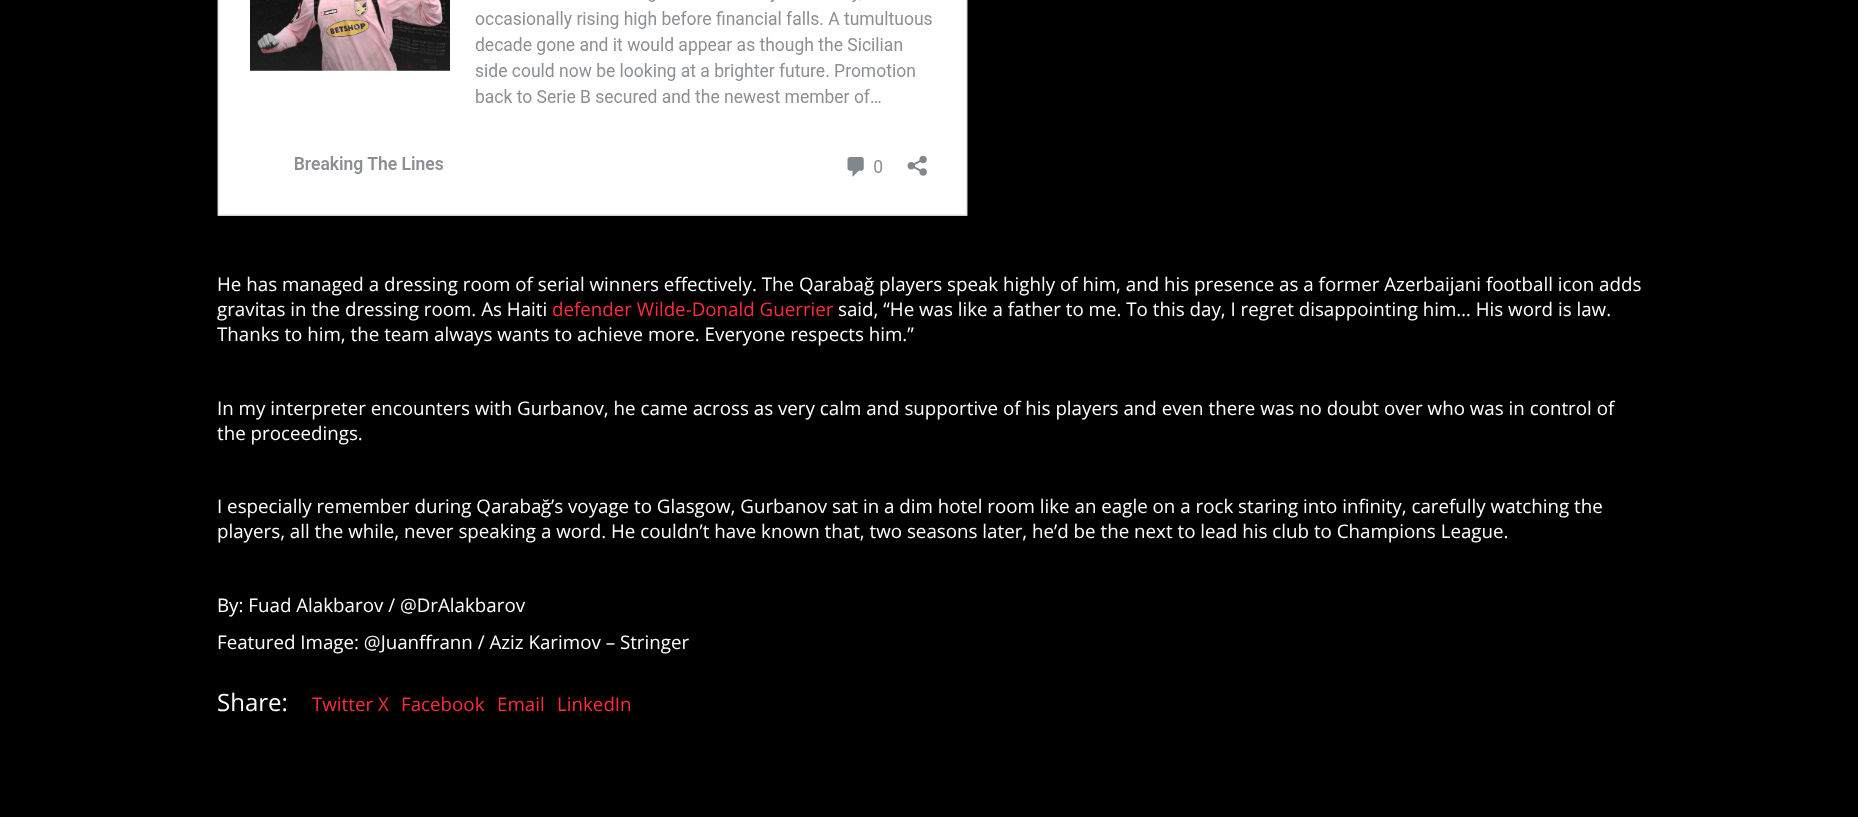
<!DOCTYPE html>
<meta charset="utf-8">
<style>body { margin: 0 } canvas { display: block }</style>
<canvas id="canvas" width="1858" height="817"></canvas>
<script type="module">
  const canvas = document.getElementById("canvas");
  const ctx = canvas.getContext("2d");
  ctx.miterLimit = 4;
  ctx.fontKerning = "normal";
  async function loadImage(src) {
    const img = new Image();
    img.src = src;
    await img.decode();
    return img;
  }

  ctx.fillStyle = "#000000";
  ctx.fillRect(0, 0, 1858, 817);
  ctx.drawImage(await loadImage("img1.png"), 217, 0, 751, 216);
  ctx.font = "18.75px Open Sans";
  ctx.fillStyle = "#ffffff";
  ctx.fillText("He has managed a dressing room of serial winners effectively. The Qaraba", 217, 291);
  ctx.font = "18.75px 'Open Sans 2'";
  ctx.fillText("ğ", 864, 291);
  ctx.font = "18.75px Open Sans";
  ctx.fillText("players speak highly of him, and his presence as a former Azerbaijani football icon adds", 879, 291);
  ctx.fillText("gravitas in the dressing room. As Haiti", 217, 316);
  ctx.fillStyle = "#ff2d39";
  ctx.fillText("defender Wilde-Donald Guerrier", 552, 316);
  ctx.fillStyle = "#ffffff";
  ctx.fillText("said, “He was like a father to me. To this day, I regret disappointing him… His word is law.", 838, 316);
  ctx.fillText("Thanks to him, the team always wants to achieve more. Everyone respects him.”", 217, 341);
  ctx.fillText("In my interpreter encounters with Gurbanov, he came across as very calm and supportive of his players and even there was no doubt over who was in control of", 217, 415);
  ctx.fillText("the proceedings.", 217, 440);
  ctx.fillText("I especially remember during Qaraba", 217, 513);
  ctx.font = "18.75px 'Open Sans 2'";
  ctx.fillText("ğ", 541, 513);
  ctx.font = "18.75px Open Sans";
  ctx.fillText("’s voyage to Glasgow, Gurbanov sat in a dim hotel room like an eagle on a rock staring into infinity, carefully watching the", 551, 513);
  ctx.fillText("players, all the while, never speaking a word. He couldn’t have known that, two seasons later, he’d be the next to lead his club to Champions League.", 217, 538);
  ctx.fillText("By: Fuad Alakbarov / @DrAlakbarov", 217, 612);
  ctx.fillText("Featured Image: @Juanffrann / Aziz Karimov – Stringer", 217, 649);
  ctx.font = "24px Open Sans";
  ctx.fillText("Share:", 217, 711);
  ctx.font = "18.75px Open Sans";
  ctx.fillStyle = "#ff2d39";
  ctx.fillText("Twitter X", 312, 711);
  ctx.fillText("Facebook", 401, 711);
  ctx.fillText("Email", 497, 711);
  ctx.fillText("LinkedIn", 557, 711);
</script>
